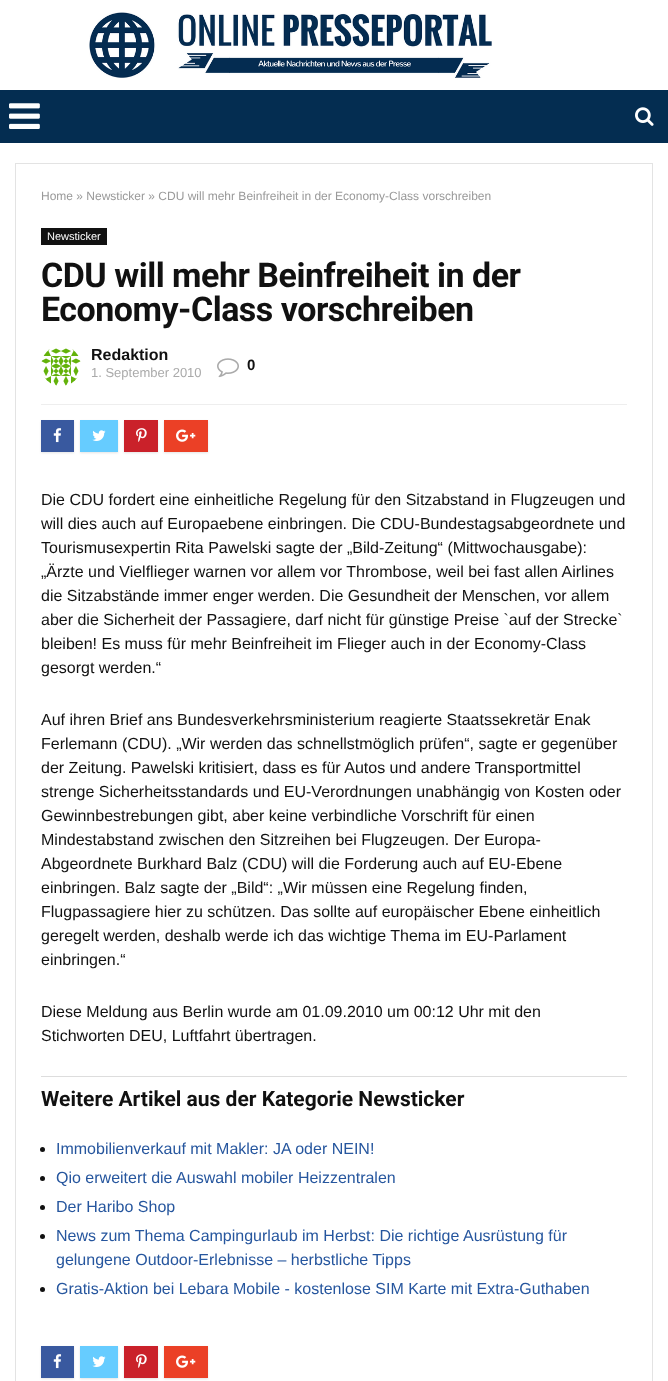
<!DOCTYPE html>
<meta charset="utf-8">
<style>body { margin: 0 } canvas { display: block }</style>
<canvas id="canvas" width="668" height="1381"></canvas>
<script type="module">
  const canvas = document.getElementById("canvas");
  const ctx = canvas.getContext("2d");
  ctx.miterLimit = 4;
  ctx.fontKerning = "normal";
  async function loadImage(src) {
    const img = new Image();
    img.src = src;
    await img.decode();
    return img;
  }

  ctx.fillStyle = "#ffffff";
  ctx.fillRect(0, 0, 668, 1381);
  ctx.drawImage(await loadImage("img1.png"), 89, 12, 403, 66);
  ctx.fillStyle = "#042d51";
  ctx.fillRect(0, 90, 668, 53);
  ctx.drawImage(await loadImage("img2.png"), 9, 103, 31, 26);
  ctx.drawImage(await loadImage("img3.png"), 635, 107, 19, 19);
  ctx.strokeStyle = "#e3e3e3";
  ctx.strokeRect(15.5, 163.5, 637, 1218);
  ctx.font = "12px Liberation Sans";
  ctx.fillStyle = "#999999";
  ctx.fillText("Home » Newsticker » CDU will mehr Beinfreiheit in der Economy-Class vorschreiben", 41, 200);
  ctx.fillStyle = "#111111";
  ctx.fillRect(41, 228, 66, 17);
  ctx.font = "11px Liberation Sans";
  ctx.fillStyle = "#ffffff";
  ctx.fillText("Newsticker", 47, 240);
  ctx.letterSpacing = "-0.5px";
  ctx.font = "bold 34px Roboto";
  ctx.fillStyle = "#111111";
  ctx.fillText("CDU will mehr Beinfreiheit in der", 41, 287);
  ctx.fillText("Economy-Class vorschreiben", 41, 321);
  ctx.fillStyle = "#eeeeee";
  ctx.fillRect(41, 404, 586, 1);
  ctx.drawImage(await loadImage("img4.png"), 41, 348, 40, 38);
  ctx.letterSpacing = "0px";
  ctx.font = "bold 16px Liberation Sans";
  ctx.fillStyle = "#111111";
  ctx.fillText("Redaktion", 91, 360);
  ctx.font = "13px Liberation Sans";
  ctx.fillStyle = "#aaaaaa";
  ctx.fillText("1. September 2010", 91, 377);
  ctx.drawImage(await loadImage("img5.png"), 217, 358, 22, 20);
  ctx.font = "bold 15px Liberation Sans";
  ctx.fillStyle = "#111111";
  ctx.fillText("0", 247, 370);
  ctx.fillStyle = "#e4e4e4";
  ctx.filter = "blur(1px)";
  ctx.beginPath();
  ctx.rect(41, 421, 33, 32);
  ctx.fill();
  ctx.filter = "none";
  ctx.fillStyle = "#39599f";
  ctx.fillRect(41, 420, 33, 32);
  ctx.drawImage(await loadImage("img6.png"), 53, 428, 9, 15);
  ctx.fillStyle = "#e4e4e4";
  ctx.filter = "blur(1px)";
  ctx.beginPath();
  ctx.rect(80, 421, 38, 32);
  ctx.fill();
  ctx.filter = "none";
  ctx.fillStyle = "#66ccff";
  ctx.fillRect(80, 420, 38, 32);
  ctx.drawImage(await loadImage("img7.png"), 92, 430, 14, 11);
  ctx.fillStyle = "#e4e4e4";
  ctx.filter = "blur(1px)";
  ctx.beginPath();
  ctx.rect(124, 421, 34, 32);
  ctx.fill();
  ctx.filter = "none";
  ctx.fillStyle = "#ca212a";
  ctx.fillRect(124, 420, 34, 32);
  ctx.drawImage(await loadImage("img8.png"), 136, 428, 11, 14);
  ctx.fillStyle = "#e4e4e4";
  ctx.filter = "blur(1px)";
  ctx.beginPath();
  ctx.rect(164, 421, 44, 32);
  ctx.fill();
  ctx.filter = "none";
  ctx.fillStyle = "#eb4026";
  ctx.fillRect(164, 420, 44, 32);
  ctx.drawImage(await loadImage("img9.png"), 176, 429, 20, 13);
  ctx.font = "16px Liberation Sans";
  ctx.fillStyle = "#111111";
  ctx.fillText("Die CDU fordert eine einheitliche Regelung für den Sitzabstand in Flugzeugen und", 41, 505);
  ctx.fillText("will dies auch auf Europaebene einbringen. Die CDU-Bundestagsabgeordnete und", 41, 529);
  ctx.fillText("Tourismusexpertin Rita Pawelski sagte der „Bild-Zeitung“ (Mittwochausgabe):", 41, 553);
  ctx.fillText("„Ärzte und Vielflieger warnen vor allem vor Thrombose, weil bei fast allen Airlines", 41, 577);
  ctx.fillText("die Sitzabstände immer enger werden. Die Gesundheit der Menschen, vor allem", 41, 601);
  ctx.fillText("aber die Sicherheit der Passagiere, darf nicht für günstige Preise `auf der Strecke`", 41, 625);
  ctx.fillText("bleiben! Es muss für mehr Beinfreiheit im Flieger auch in der Economy-Class", 41, 649);
  ctx.fillText("gesorgt werden.“", 41, 673);
  ctx.fillText("Auf ihren Brief ans Bundesverkehrsministerium reagierte Staatssekretär Enak", 41, 725);
  ctx.fillText("Ferlemann (CDU). „Wir werden das schnellstmöglich prüfen“, sagte er gegenüber", 41, 749);
  ctx.fillText("der Zeitung. Pawelski kritisiert, dass es für Autos und andere Transportmittel", 41, 773);
  ctx.fillText("strenge Sicherheitsstandards und EU-Verordnungen unabhängig von Kosten oder", 41, 797);
  ctx.fillText("Gewinnbestrebungen gibt, aber keine verbindliche Vorschrift für einen", 41, 821);
  ctx.fillText("Mindestabstand zwischen den Sitzreihen bei Flugzeugen. Der Europa-", 41, 845);
  ctx.fillText("Abgeordnete Burkhard Balz (CDU) will die Forderung auch auf EU-Ebene", 41, 869);
  ctx.fillText("einbringen. Balz sagte der „Bild“: „Wir müssen eine Regelung finden,", 41, 893);
  ctx.fillText("Flugpassagiere hier zu schützen. Das sollte auf europäischer Ebene einheitlich", 41, 917);
  ctx.fillText("geregelt werden, deshalb werde ich das wichtige Thema im EU-Parlament", 41, 941);
  ctx.fillText("einbringen.“", 41, 965);
  ctx.fillText("Diese Meldung aus Berlin wurde am 01.09.2010 um 00:12 Uhr mit den", 41, 1017);
  ctx.fillText("Stichworten DEU, Luftfahrt übertragen.", 41, 1041);
  ctx.fillStyle = "#dddddd";
  ctx.fillRect(41, 1076, 586, 1);
  ctx.font = "bold 21px Roboto";
  ctx.fillStyle = "#111111";
  ctx.fillText("Weitere Artikel aus der Kategorie Newsticker", 41, 1106);
  ctx.beginPath();
  ctx.arc(42.5, 1149.5, 2.5, 0, Math.PI * 2);
  ctx.fill();
  ctx.font = "16px Liberation Sans";
  ctx.fillStyle = "#26569e";
  ctx.fillText("Immobilienverkauf mit Makler: JA oder NEIN!", 56, 1154);
  ctx.fillStyle = "#111111";
  ctx.beginPath();
  ctx.arc(42.5, 1178.5, 2.5, 0, Math.PI * 2);
  ctx.fill();
  ctx.fillStyle = "#26569e";
  ctx.fillText("Qio erweitert die Auswahl mobiler Heizzentralen", 56, 1183);
  ctx.fillStyle = "#111111";
  ctx.beginPath();
  ctx.arc(42.5, 1207.5, 2.5, 0, Math.PI * 2);
  ctx.fill();
  ctx.fillStyle = "#26569e";
  ctx.fillText("Der Haribo Shop", 56, 1212);
  ctx.fillStyle = "#111111";
  ctx.beginPath();
  ctx.arc(42.5, 1236.5, 2.5, 0, Math.PI * 2);
  ctx.fill();
  ctx.fillStyle = "#26569e";
  ctx.fillText("News zum Thema Campingurlaub im Herbst: Die richtige Ausrüstung für", 56, 1241);
  ctx.fillText("gelungene Outdoor-Erlebnisse – herbstliche Tipps", 56, 1265);
  ctx.fillStyle = "#111111";
  ctx.beginPath();
  ctx.arc(42.5, 1289.5, 2.5, 0, Math.PI * 2);
  ctx.fill();
  ctx.fillStyle = "#26569e";
  ctx.fillText("Gratis-Aktion bei Lebara Mobile - kostenlose SIM Karte mit Extra-Guthaben", 56, 1294);
  ctx.fillStyle = "#e4e4e4";
  ctx.filter = "blur(1px)";
  ctx.beginPath();
  ctx.rect(41, 1347, 33, 32);
  ctx.fill();
  ctx.filter = "none";
  ctx.fillStyle = "#39599f";
  ctx.fillRect(41, 1346, 33, 32);
  ctx.drawImage(await loadImage("img6.png"), 53, 1354, 9, 15);
  ctx.fillStyle = "#e4e4e4";
  ctx.filter = "blur(1px)";
  ctx.beginPath();
  ctx.rect(80, 1347, 38, 32);
  ctx.fill();
  ctx.filter = "none";
  ctx.fillStyle = "#66ccff";
  ctx.fillRect(80, 1346, 38, 32);
  ctx.drawImage(await loadImage("img7.png"), 92, 1356, 14, 11);
  ctx.fillStyle = "#e4e4e4";
  ctx.filter = "blur(1px)";
  ctx.beginPath();
  ctx.rect(124, 1347, 34, 32);
  ctx.fill();
  ctx.filter = "none";
  ctx.fillStyle = "#ca212a";
  ctx.fillRect(124, 1346, 34, 32);
  ctx.drawImage(await loadImage("img8.png"), 136, 1354, 11, 14);
  ctx.fillStyle = "#e4e4e4";
  ctx.filter = "blur(1px)";
  ctx.beginPath();
  ctx.rect(164, 1347, 44, 32);
  ctx.fill();
  ctx.filter = "none";
  ctx.fillStyle = "#eb4026";
  ctx.fillRect(164, 1346, 44, 32);
  ctx.drawImage(await loadImage("img9.png"), 176, 1355, 20, 13);
</script>
